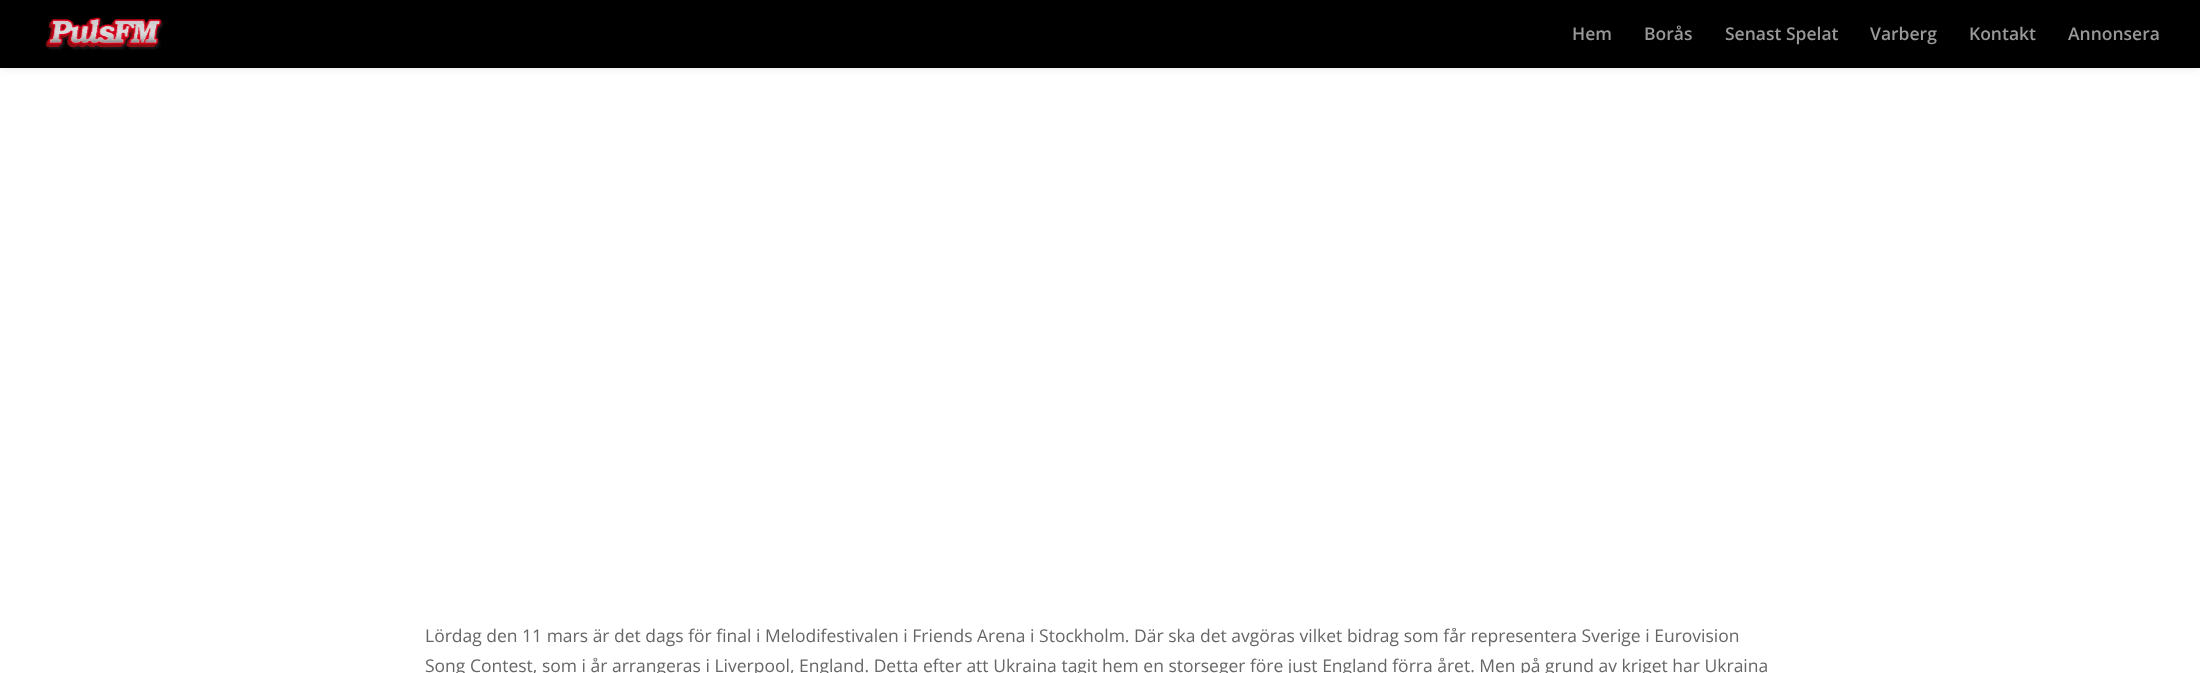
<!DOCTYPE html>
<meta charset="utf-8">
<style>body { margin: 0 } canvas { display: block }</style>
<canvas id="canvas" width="2200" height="673"></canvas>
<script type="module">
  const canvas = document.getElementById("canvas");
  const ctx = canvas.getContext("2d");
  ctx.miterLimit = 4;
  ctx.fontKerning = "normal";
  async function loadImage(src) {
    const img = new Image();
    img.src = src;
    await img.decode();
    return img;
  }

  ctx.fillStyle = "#ffffff";
  ctx.fillRect(0, 0, 2200, 673);
  ctx.fillStyle = "rgba(0, 0, 0, 0.1)";
  ctx.filter = "blur(4.5px)";
  ctx.beginPath();
  ctx.rect(0, 0, 2200, 68);
  ctx.fill();
  ctx.filter = "none";
  ctx.fillStyle = "#000000";
  ctx.fillRect(0, 0, 2200, 68);
  ctx.drawImage(await loadImage("img1.png"), 45, 17, 119, 34);
  ctx.font = "600 17.5px Open Sans";
  ctx.fillStyle = "#999999";
  ctx.fillText("Hem", 1572, 40);
  ctx.fillText("Borås", 1644, 40);
  ctx.fillText("Senast Spelat", 1725, 40);
  ctx.fillText("Varberg", 1870, 40);
  ctx.fillText("Kontakt", 1969, 40);
  ctx.fillText("Annonsera", 2068, 40);
  ctx.font = "17.5px Open Sans";
  ctx.fillStyle = "#666666";
  ctx.fillText("Lördag den 11 mars är det dags för final i Melodifestivalen i Friends Arena i Stockholm. Där ska det avgöras vilket bidrag som får representera Sverige i Eurovision", 425, 642);
  ctx.fillText("Song Contest, som i år arrangeras i Liverpool, England. Detta efter att Ukraina tagit hem en storseger före just England förra året. Men på grund av kriget har Ukraina", 425, 672);
</script>
